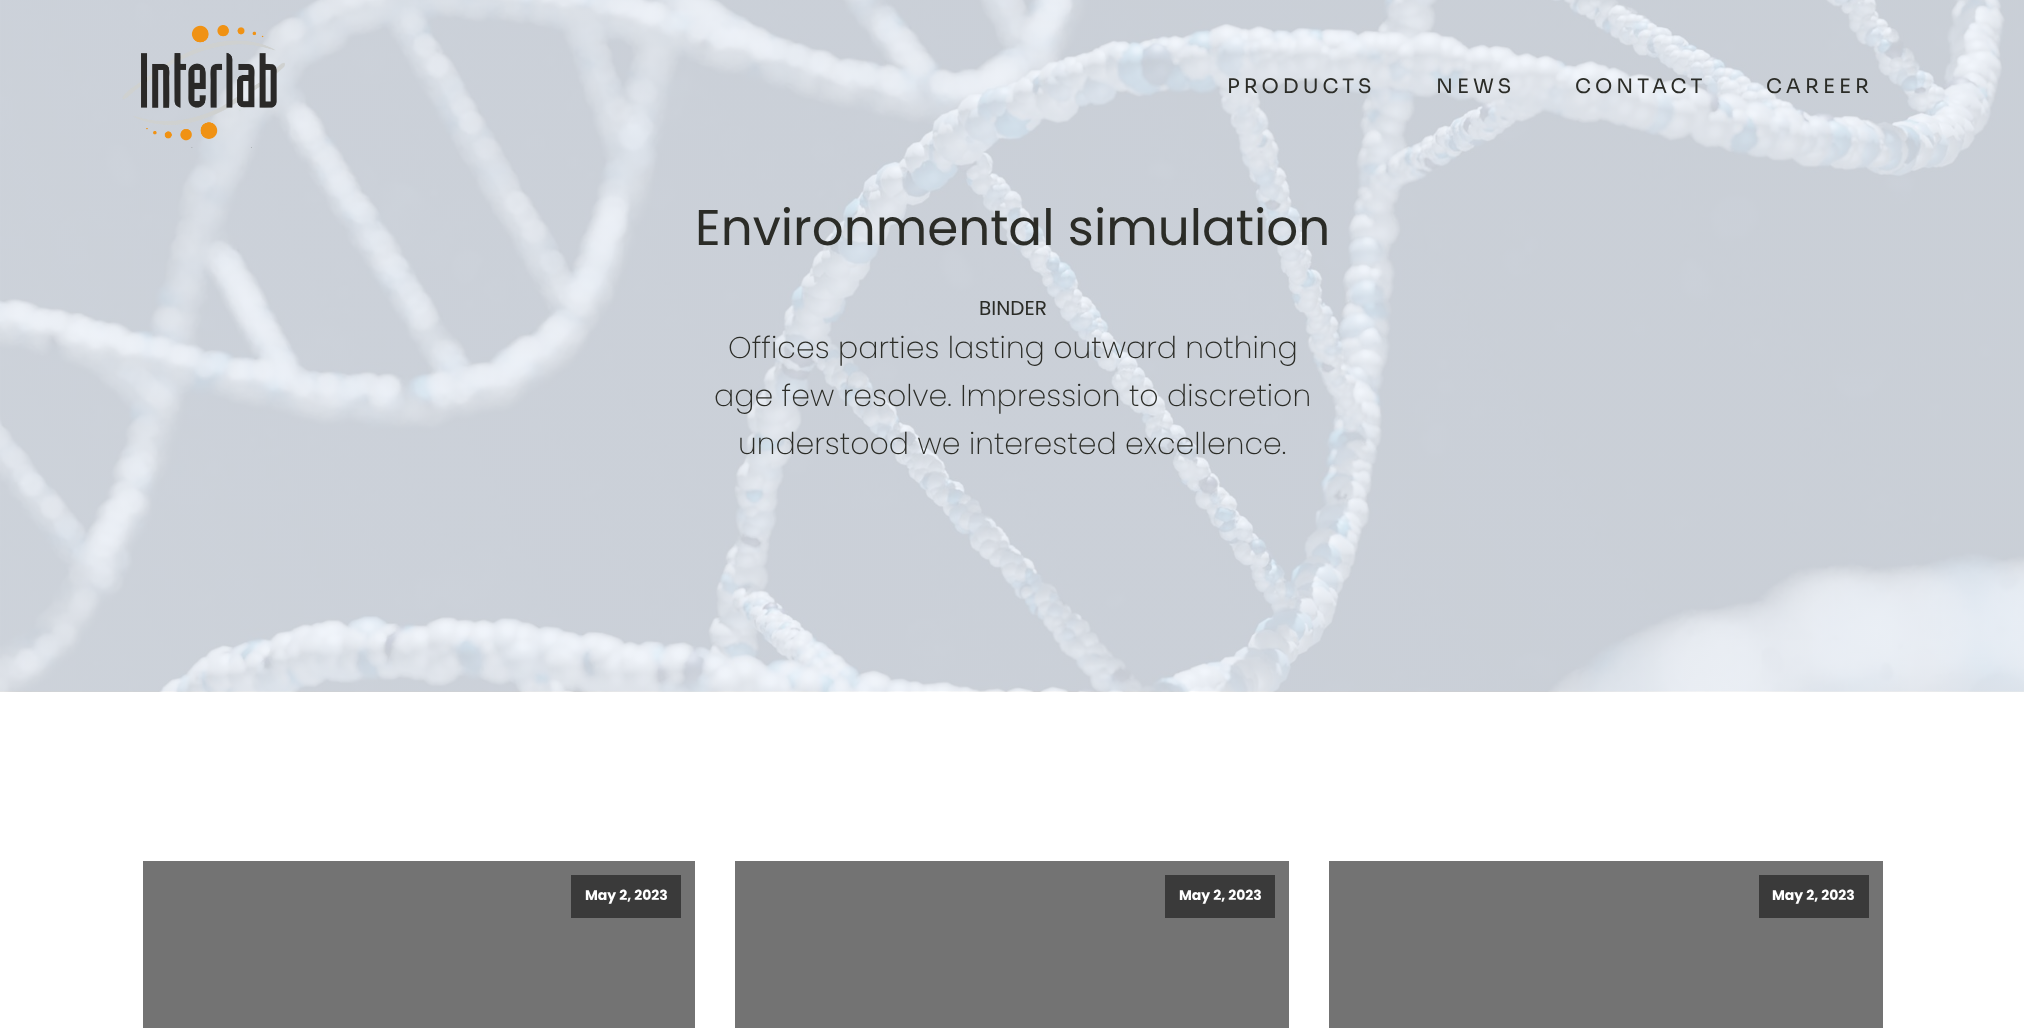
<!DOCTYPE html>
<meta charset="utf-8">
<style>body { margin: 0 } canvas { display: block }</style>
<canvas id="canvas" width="2024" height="1028"></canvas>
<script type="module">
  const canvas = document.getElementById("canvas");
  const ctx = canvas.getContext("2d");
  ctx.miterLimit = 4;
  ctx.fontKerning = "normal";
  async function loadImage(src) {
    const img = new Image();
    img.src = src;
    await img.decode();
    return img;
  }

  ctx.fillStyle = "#ffffff";
  ctx.fillRect(0, 0, 2024, 1028);
  ctx.drawImage(await loadImage("img2.png"), 0, 0, 2024, 692);
  ctx.drawImage(await loadImage("img1.png"), 122, 25, 163, 123);
  ctx.letterSpacing = "4px";
  ctx.font = "20px Sora";
  ctx.fillStyle = "#2b2c27";
  ctx.fillText("PRODUCTS", 1227, 93);
  ctx.fillText("NEWS", 1436, 93);
  ctx.fillText("CONTACT", 1575, 93);
  ctx.fillText("CAREER", 1766, 93);
  ctx.letterSpacing = "0px";
  ctx.font = "50px Poppins";
  ctx.fillText("Environmental simulation", 695, 245);
  ctx.font = "20px Poppins";
  ctx.fillText("BINDER", 979, 315);
  ctx.font = "200 30px Poppins";
  ctx.fillText("Offices parties lasting outward nothing", 728, 358);
  ctx.fillText("age few resolve. Impression to discretion", 714, 406);
  ctx.fillText("understood we interested excellence.", 738, 454);
  ctx.fillStyle = "#737373";
  ctx.fillRect(143, 861, 552, 167);
  ctx.fillStyle = "#3a3a3a";
  ctx.fillRect(571, 875, 110, 43);
  ctx.font = "bold 14px Poppins";
  ctx.fillStyle = "#ffffff";
  ctx.fillText("May 2, 2023", 585, 900);
  ctx.fillStyle = "#737373";
  ctx.fillRect(735, 861, 554, 167);
  ctx.fillStyle = "#3a3a3a";
  ctx.fillRect(1165, 875, 110, 43);
  ctx.fillStyle = "#ffffff";
  ctx.fillText("May 2, 2023", 1179, 900);
  ctx.fillStyle = "#737373";
  ctx.fillRect(1329, 861, 554, 167);
  ctx.fillStyle = "#3a3a3a";
  ctx.fillRect(1759, 875, 110, 43);
  ctx.fillStyle = "#ffffff";
  ctx.fillText("May 2, 2023", 1772, 900);
</script>
